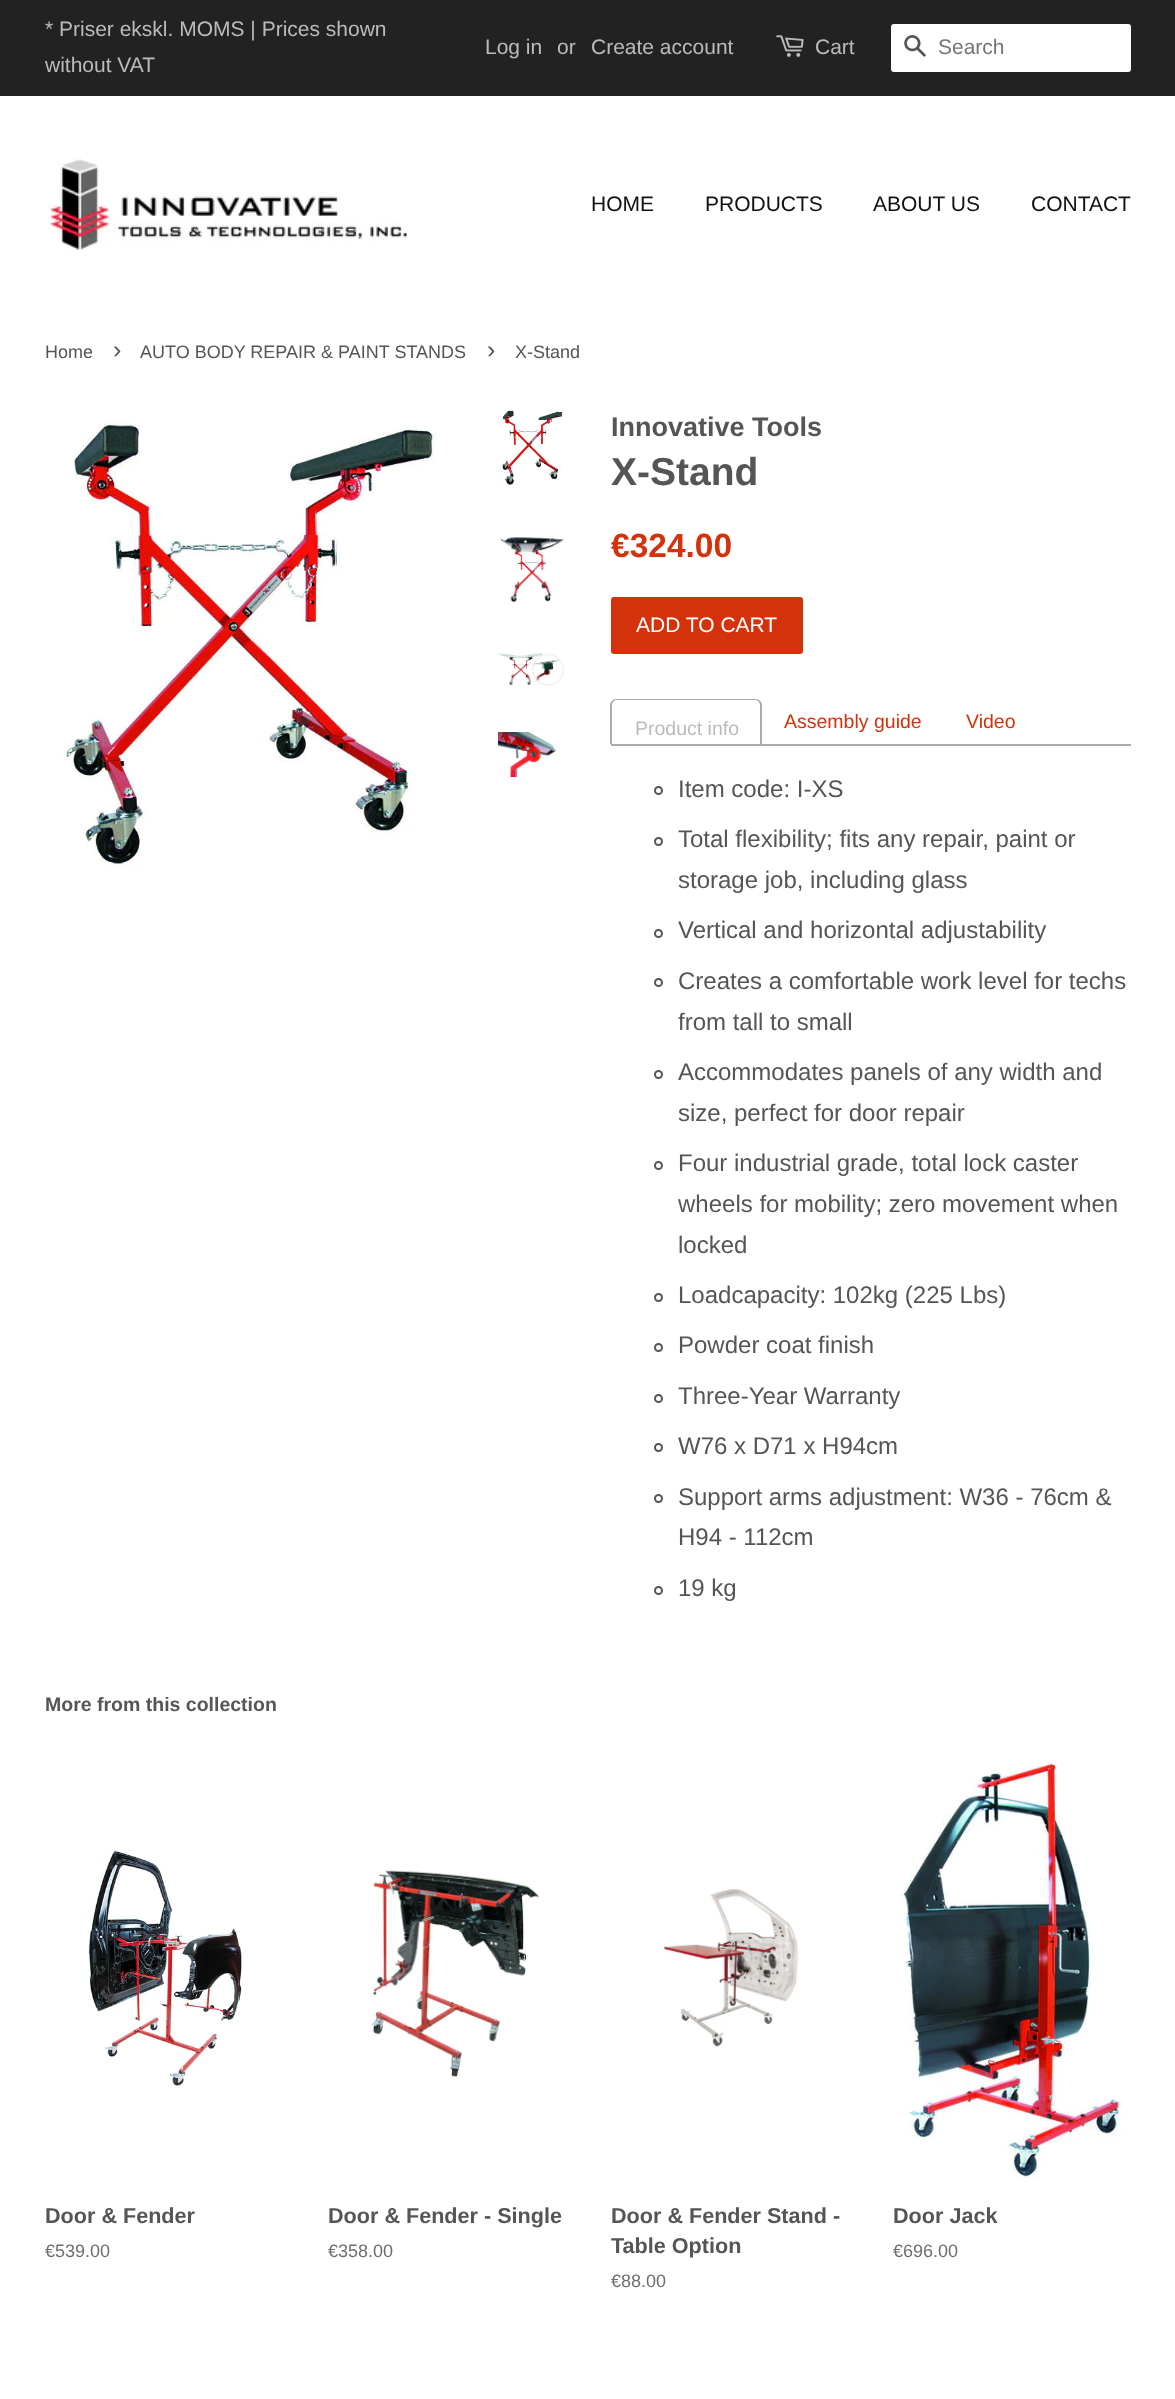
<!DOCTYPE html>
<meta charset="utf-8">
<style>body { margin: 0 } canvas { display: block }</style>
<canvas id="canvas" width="1175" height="2399"></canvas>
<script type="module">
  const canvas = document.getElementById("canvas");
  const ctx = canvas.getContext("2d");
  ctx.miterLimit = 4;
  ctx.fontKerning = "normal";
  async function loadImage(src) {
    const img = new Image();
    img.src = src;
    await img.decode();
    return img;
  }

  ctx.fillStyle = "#ffffff";
  ctx.fillRect(0, 0, 1175, 2399);
  ctx.fillStyle = "#222222";
  ctx.fillRect(0, 0, 1175, 96);
  ctx.font = "21px Liberation Sans";
  ctx.fillStyle = "#bbbbbb";
  ctx.fillText("* Priser ekskl. MOMS | Prices shown", 45, 36);
  ctx.fillText("without VAT", 45, 72);
  ctx.fillText("Log in", 485, 54);
  ctx.fillText("or", 557, 54);
  ctx.fillText("Create account", 591, 54);
  ctx.drawImage(await loadImage("img1.png"), 776, 35, 28, 22);
  ctx.fillText("Cart", 815, 54);
  ctx.fillStyle = "#ffffff";
  ctx.beginPath();
  ctx.roundRect(891, 24, 240, 48, 3);
  ctx.fill();
  ctx.drawImage(await loadImage("img2.png"), 904, 35, 22, 22);
  ctx.fillStyle = "#757575";
  ctx.fillText("Search", 938, 54);
  ctx.drawImage(await loadImage("img3.png"), 48, 159, 359, 91);
  ctx.fillStyle = "#111111";
  ctx.fillText("HOME", 591, 211);
  ctx.fillText("PRODUCTS", 705, 211);
  ctx.fillText("ABOUT US", 873, 211);
  ctx.fillText("CONTACT", 1031, 211);
  ctx.font = "18px Liberation Sans";
  ctx.fillStyle = "#555555";
  ctx.fillText("Home", 45, 358);
  ctx.font = "25px Liberation Sans";
  ctx.fillText("›", 113, 358);
  ctx.font = "18px Liberation Sans";
  ctx.fillText("AUTO BODY REPAIR & PAINT STANDS", 140, 358);
  ctx.font = "25px Liberation Sans";
  ctx.fillText("›", 487, 358);
  ctx.font = "18px Liberation Sans";
  ctx.fillText("X-Stand", 515, 358);
  ctx.drawImage(await loadImage("img4.png"), 63, 420, 373, 449);
  ctx.drawImage(await loadImage("img5.png"), 501, 410, 62, 75);
  ctx.drawImage(await loadImage("img6.png"), 500, 537, 64, 66);
  ctx.drawImage(await loadImage("img7.png"), 499, 653, 65, 33);
  ctx.drawImage(await loadImage("img8.png"), 498, 732, 58, 45);
  ctx.font = "bold 27px Liberation Sans";
  ctx.fillText("Innovative Tools", 611, 436);
  ctx.font = "bold 39px Liberation Sans";
  ctx.fillText("X-Stand", 611, 485);
  ctx.font = "bold 33.5px Liberation Sans";
  ctx.fillStyle = "#d3320c";
  ctx.fillText("€324.00", 611, 557);
  ctx.beginPath();
  ctx.roundRect(611, 597, 192, 57, 3);
  ctx.fill();
  ctx.font = "21px Liberation Sans";
  ctx.fillStyle = "#ffffff";
  ctx.fillText("ADD TO CART", 636, 632);
  ctx.fillStyle = "#aaaaaa";
  ctx.fillRect(611, 744, 520, 2);
  ctx.beginPath();
  ctx.moveTo(616, 699);
  ctx.lineTo(756, 699);
  ctx.bezierCurveTo(759, 699, 762, 702, 762, 705);
  ctx.lineTo(762, 744);
  ctx.lineTo(610, 744);
  ctx.lineTo(610, 705);
  ctx.bezierCurveTo(610, 702, 613, 699, 616, 699);
  ctx.closePath();
  ctx.moveTo(616, 700);
  ctx.lineTo(756, 700);
  ctx.bezierCurveTo(758, 700, 760, 703, 760, 705);
  ctx.lineTo(760, 744);
  ctx.lineTo(612, 744);
  ctx.lineTo(612, 705);
  ctx.bezierCurveTo(612, 703, 614, 700, 616, 700);
  ctx.closePath();
  ctx.fill("evenodd");
  ctx.font = "19.5px Liberation Sans";
  ctx.fillStyle = "#bbbbbb";
  ctx.fillText("Product info", 635, 735);
  ctx.fillStyle = "#d3320c";
  ctx.fillText("Assembly guide", 784, 728);
  ctx.fillText("Video", 966, 728);
  ctx.beginPath();
  ctx.arc(658.5, 790.5, 3.5, 0, Math.PI * 2);
  ctx.strokeStyle = "#555555";
  ctx.lineWidth = 2;
  ctx.stroke();
  ctx.font = "24px Liberation Sans";
  ctx.fillStyle = "#555555";
  ctx.fillText("Item code: I-XS", 678, 797);
  ctx.beginPath();
  ctx.arc(658.5, 841.5, 3.5, 0, Math.PI * 2);
  ctx.stroke();
  ctx.fillText("Total flexibility; fits any repair, paint or", 678, 847);
  ctx.fillText("storage job, including glass", 678, 888);
  ctx.beginPath();
  ctx.arc(658.5, 933.5, 3.5, 0, Math.PI * 2);
  ctx.stroke();
  ctx.fillText("Vertical and horizontal adjustability", 678, 938);
  ctx.beginPath();
  ctx.arc(658.5, 982.5, 3.5, 0, Math.PI * 2);
  ctx.stroke();
  ctx.fillText("Creates a comfortable work level for techs", 678, 989);
  ctx.fillText("from tall to small", 678, 1030);
  ctx.beginPath();
  ctx.arc(658.5, 1074.5, 3.5, 0, Math.PI * 2);
  ctx.stroke();
  ctx.fillText("Accommodates panels of any width and", 678, 1080);
  ctx.fillText("size, perfect for door repair", 678, 1121);
  ctx.beginPath();
  ctx.arc(658.5, 1165.5, 3.5, 0, Math.PI * 2);
  ctx.stroke();
  ctx.fillText("Four industrial grade, total lock caster", 678, 1171);
  ctx.fillText("wheels for mobility; zero movement when", 678, 1212);
  ctx.fillText("locked", 678, 1253);
  ctx.beginPath();
  ctx.arc(658.5, 1297.5, 3.5, 0, Math.PI * 2);
  ctx.stroke();
  ctx.fillText("Loadcapacity: 102kg (225 Lbs)", 678, 1303);
  ctx.beginPath();
  ctx.arc(658.5, 1347.5, 3.5, 0, Math.PI * 2);
  ctx.stroke();
  ctx.fillText("Powder coat finish", 678, 1353);
  ctx.beginPath();
  ctx.arc(658.5, 1398.5, 3.5, 0, Math.PI * 2);
  ctx.stroke();
  ctx.fillText("Three-Year Warranty", 678, 1404);
  ctx.beginPath();
  ctx.arc(658.5, 1447.5, 3.5, 0, Math.PI * 2);
  ctx.stroke();
  ctx.fillText("W76 x D71 x H94cm", 678, 1454);
  ctx.beginPath();
  ctx.arc(658.5, 1498.5, 3.5, 0, Math.PI * 2);
  ctx.stroke();
  ctx.fillText("Support arms adjustment: W36 - 76cm &", 678, 1505);
  ctx.fillText("H94 - 112cm", 678, 1545);
  ctx.beginPath();
  ctx.arc(658.5, 1590.5, 3.5, 0, Math.PI * 2);
  ctx.stroke();
  ctx.fillText("19 kg", 678, 1596);
  ctx.font = "bold 19.5px Liberation Sans";
  ctx.fillText("More from this collection", 45, 1711);
  ctx.drawImage(await loadImage("img9.png"), 87, 1850, 155, 236);
  ctx.font = "bold 21.6px Liberation Sans";
  ctx.fillText("Door & Fender", 45, 2223);
  ctx.font = "18px Liberation Sans";
  ctx.fillStyle = "#6e6e6e";
  ctx.fillText("€539.00", 45, 2257);
  ctx.drawImage(await loadImage("img10.png"), 371, 1870, 168, 208);
  ctx.font = "bold 21.6px Liberation Sans";
  ctx.fillStyle = "#555555";
  ctx.fillText("Door & Fender - Single", 328, 2223);
  ctx.font = "18px Liberation Sans";
  ctx.fillStyle = "#6e6e6e";
  ctx.fillText("€358.00", 328, 2257);
  ctx.drawImage(await loadImage("img11.png"), 663, 1888, 136, 159);
  ctx.font = "bold 21.6px Liberation Sans";
  ctx.fillStyle = "#555555";
  ctx.fillText("Door & Fender Stand -", 611, 2223);
  ctx.fillText("Table Option", 611, 2253);
  ctx.font = "18px Liberation Sans";
  ctx.fillStyle = "#6e6e6e";
  ctx.fillText("€88.00", 611, 2287);
  ctx.drawImage(await loadImage("img12.png"), 900, 1762, 223, 417);
  ctx.font = "bold 21.6px Liberation Sans";
  ctx.fillStyle = "#555555";
  ctx.fillText("Door Jack", 893, 2223);
  ctx.font = "18px Liberation Sans";
  ctx.fillStyle = "#6e6e6e";
  ctx.fillText("€696.00", 893, 2257);
</script>
